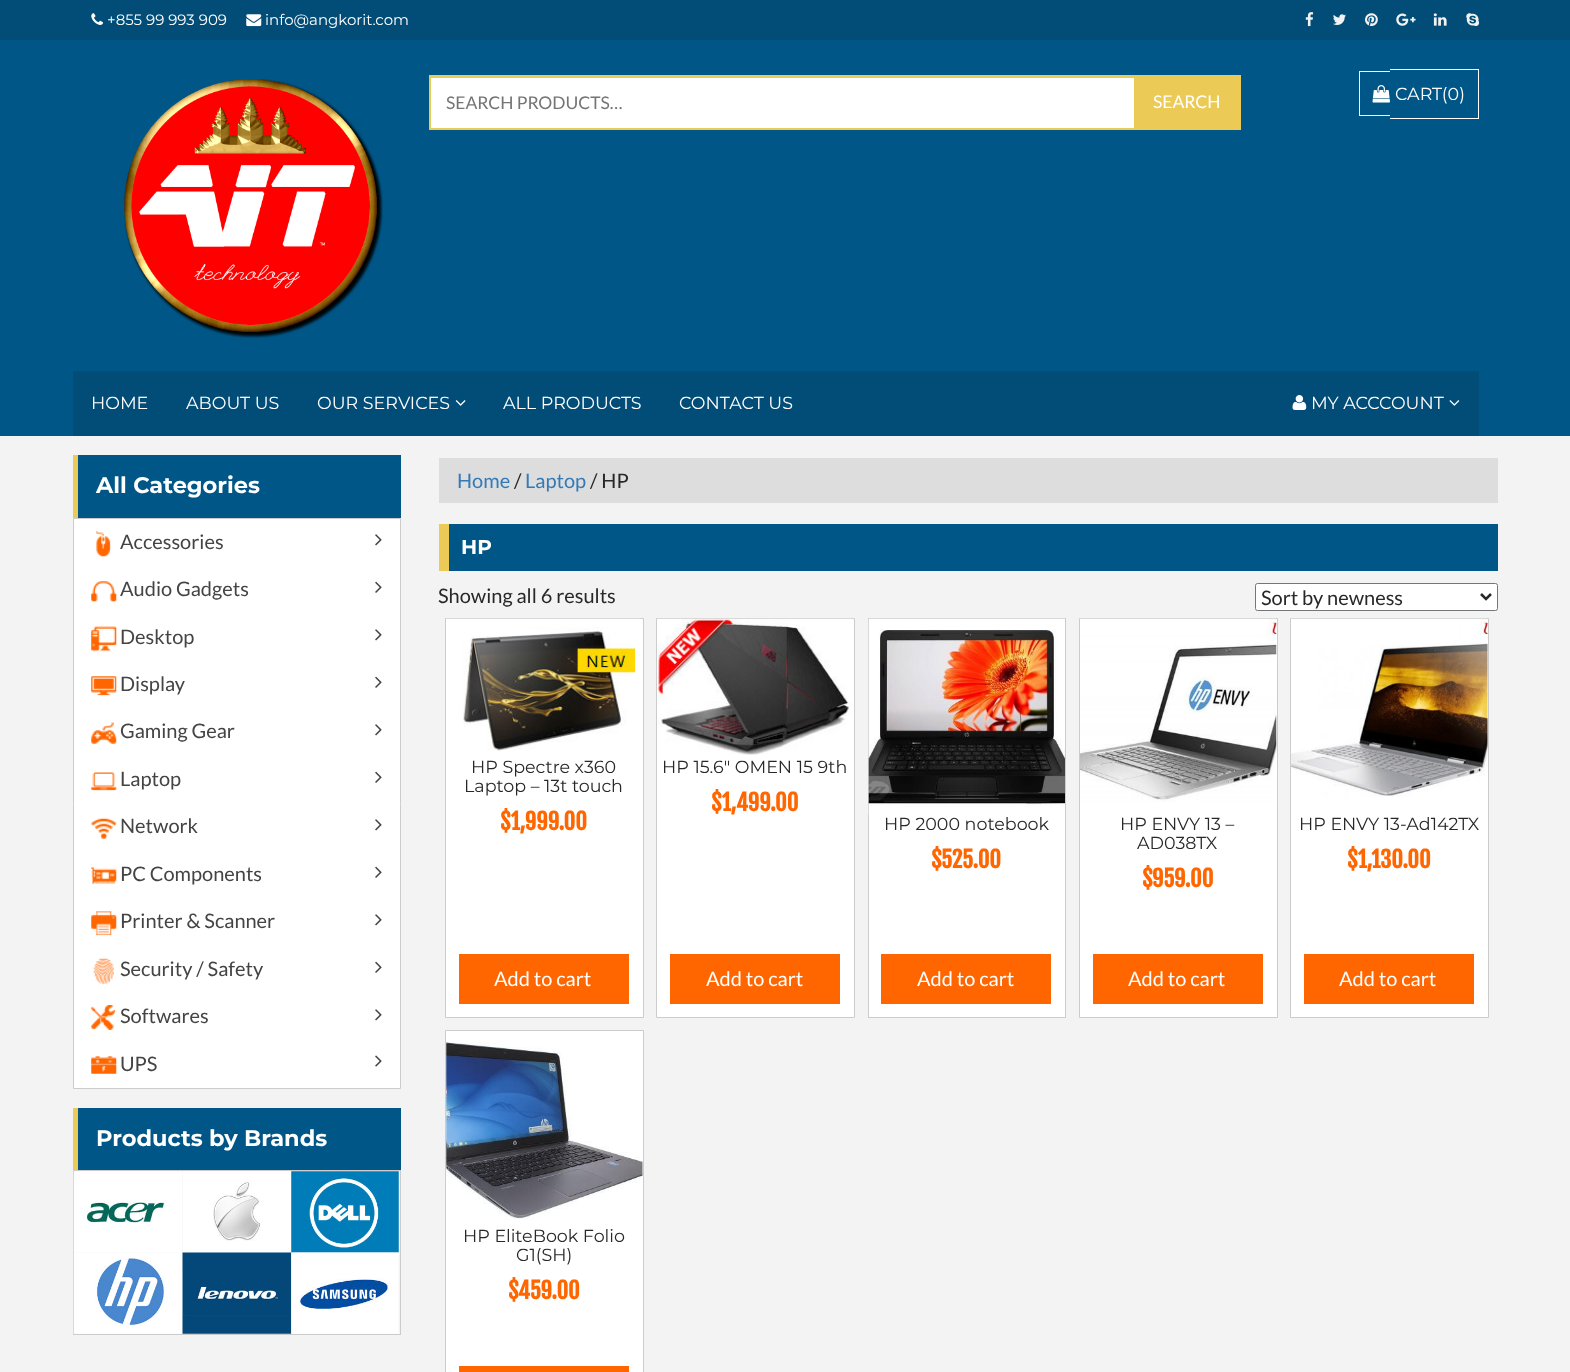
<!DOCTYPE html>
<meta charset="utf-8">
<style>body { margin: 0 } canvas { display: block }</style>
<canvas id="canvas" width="1570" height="1372"></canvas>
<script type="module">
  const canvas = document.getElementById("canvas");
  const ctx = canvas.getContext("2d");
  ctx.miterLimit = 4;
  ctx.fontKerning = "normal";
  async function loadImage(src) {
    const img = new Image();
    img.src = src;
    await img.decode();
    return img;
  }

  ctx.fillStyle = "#f3f3f3";
  ctx.fillRect(0, 0, 1570, 1372);
  ctx.fillStyle = "#014d77";
  ctx.fillRect(0, 0, 1570, 40);
  ctx.drawImage(await loadImage("img1.png"), 91, 13, 12, 12);
  ctx.font = "100 15px Montserrat";
  ctx.fillStyle = "#ffffff";
  ctx.fillText("+855 99 993 909", 107, 25);
  ctx.drawImage(await loadImage("img2.png"), 246, 14, 16, 13);
  ctx.fillText("info@angkorit.com", 265, 25);
  ctx.drawImage(await loadImage("img3.png"), 1305, 12, 9, 15);
  ctx.drawImage(await loadImage("img4.png"), 1333, 14, 13, 11);
  ctx.drawImage(await loadImage("img5.png"), 1365, 13, 13, 14);
  ctx.drawImage(await loadImage("img6.png"), 1396, 13, 20, 13);
  ctx.drawImage(await loadImage("img7.png"), 1433, 13, 14, 13);
  ctx.drawImage(await loadImage("img8.png"), 1466, 13, 14, 14);
  ctx.fillStyle = "#005686";
  ctx.fillRect(0, 40, 1570, 396);
  ctx.drawImage(await loadImage("img9.png"), 124, 79, 259, 259);
  ctx.strokeStyle = "#ebca56";
  ctx.lineWidth = 3;
  ctx.strokeRect(430.5, 76.5, 809, 52);
  ctx.fillStyle = "#ffffff";
  ctx.fillRect(431, 78, 703, 50);
  ctx.font = "17.5px Lato";
  ctx.fillStyle = "#757575";
  ctx.fillText("SEARCH PRODUCTS…", 446, 109);
  ctx.fillStyle = "#ebca56";
  ctx.fillRect(1134, 78, 104, 49);
  ctx.fillStyle = "#ffffff";
  ctx.fillText("SEARCH", 1153, 108);
  ctx.fillRect(1359, 71, 31, 1);
  ctx.fillRect(1359, 115, 31, 1);
  ctx.fillRect(1359, 71, 1, 45);
  ctx.fillRect(1390, 69, 89, 1);
  ctx.fillRect(1390, 118, 69, 1);
  ctx.fillRect(1478, 69, 1, 50);
  ctx.fillRect(1459, 118, 20, 1);
  ctx.drawImage(await loadImage("img10.png"), 1372, 85, 18, 18);
  ctx.font = "100 17.5px Montserrat";
  ctx.fillText("CART(0)", 1395, 100);
  ctx.fillStyle = "#014d77";
  ctx.fillRect(73, 371, 1406, 65);
  ctx.fillStyle = "#ffffff";
  ctx.fillText("HOME", 91, 409);
  ctx.fillText("ABOUT US", 186, 409);
  ctx.fillText("OUR SERVICES", 317, 409);
  ctx.drawImage(await loadImage("img11.png"), 455, 400, 11, 6);
  ctx.fillText("ALL PRODUCTS", 503, 409);
  ctx.fillText("CONTACT US", 679, 409);
  ctx.drawImage(await loadImage("img12.png"), 1292, 395, 15, 15);
  ctx.fillText("MY ACCCOUNT", 1311, 409);
  ctx.drawImage(await loadImage("img13.png"), 1449, 400, 11, 6);
  ctx.fillStyle = "#005686";
  ctx.fillRect(78, 455, 323, 63);
  ctx.fillStyle = "#ebca56";
  ctx.fillRect(73, 455, 5, 63);
  ctx.font = "bold 22.5px Montserrat";
  ctx.fillStyle = "#ffffff";
  ctx.fillText("All Categories", 96, 493);
  ctx.beginPath();
  ctx.rect(73.5, 518.5, 327, 570);
  ctx.fill();
  ctx.strokeStyle = "#cccccc";
  ctx.lineWidth = 1;
  ctx.stroke();
  ctx.drawImage(await loadImage("img14.png"), 96, 531, 15, 26);
  ctx.font = "20px Lato";
  ctx.fillStyle = "#444444";
  ctx.fillText("Accessories", 120, 549);
  ctx.drawImage(await loadImage("img15.png"), 375, 534, 7, 12);
  ctx.drawImage(await loadImage("img16.png"), 91, 581, 26, 21);
  ctx.fillText("Audio Gadgets", 120, 596);
  ctx.drawImage(await loadImage("img17.png"), 375, 581, 7, 12);
  ctx.drawImage(await loadImage("img18.png"), 91, 626, 26, 26);
  ctx.fillText("Desktop", 120, 644);
  ctx.drawImage(await loadImage("img15.png"), 375, 629, 7, 12);
  ctx.drawImage(await loadImage("img19.png"), 91, 676, 26, 20);
  ctx.fillText("Display", 120, 691);
  ctx.drawImage(await loadImage("img17.png"), 375, 676, 7, 12);
  ctx.drawImage(await loadImage("img20.png"), 91, 722, 26, 22);
  ctx.fillText("Gaming Gear", 120, 738);
  ctx.drawImage(await loadImage("img15.png"), 375, 724, 7, 12);
  ctx.drawImage(await loadImage("img21.png"), 91, 772, 26, 19);
  ctx.fillText("Laptop", 120, 786);
  ctx.drawImage(await loadImage("img17.png"), 375, 771, 7, 12);
  ctx.drawImage(await loadImage("img22.png"), 91, 818, 26, 21);
  ctx.fillText("Network", 120, 833);
  ctx.drawImage(await loadImage("img15.png"), 375, 819, 7, 12);
  ctx.drawImage(await loadImage("img23.png"), 91, 867, 26, 17);
  ctx.fillText("PC Components", 120, 881);
  ctx.drawImage(await loadImage("img17.png"), 375, 866, 7, 12);
  ctx.drawImage(await loadImage("img24.png"), 91, 911, 26, 25);
  ctx.fillText("Printer & Scanner", 120, 928);
  ctx.drawImage(await loadImage("img15.png"), 375, 914, 7, 12);
  ctx.drawImage(await loadImage("img25.png"), 93, 958, 21, 26);
  ctx.fillText("Security / Safety", 120, 976);
  ctx.drawImage(await loadImage("img17.png"), 375, 961, 7, 12);
  ctx.drawImage(await loadImage("img26.png"), 91, 1005, 25, 25);
  ctx.fillText("Softwares", 120, 1023);
  ctx.drawImage(await loadImage("img15.png"), 375, 1009, 7, 12);
  ctx.drawImage(await loadImage("img27.png"), 91, 1056, 26, 18);
  ctx.fillText("UPS", 120, 1071);
  ctx.drawImage(await loadImage("img28.png"), 375, 1055, 7, 12);
  ctx.fillStyle = "#005686";
  ctx.fillRect(78, 1108, 323, 62);
  ctx.fillStyle = "#ebca56";
  ctx.fillRect(73, 1108, 5, 62);
  ctx.font = "bold 22.5px Montserrat";
  ctx.fillStyle = "#ffffff";
  ctx.fillText("Products by Brands", 96, 1146);
  ctx.strokeRect(73.5, 1170.5, 327, 164);
  ctx.drawImage(await loadImage("img29.png"), 73, 1171, 110, 82);
  ctx.drawImage(await loadImage("img30.png"), 183, 1171, 108, 82);
  ctx.drawImage(await loadImage("img31.png"), 291, 1171, 108, 82);
  ctx.drawImage(await loadImage("img32.png"), 73, 1252, 110, 82);
  ctx.drawImage(await loadImage("img33.png"), 182, 1252, 110, 82);
  ctx.drawImage(await loadImage("img34.png"), 291, 1252, 108, 82);
  ctx.fillStyle = "#dddddd";
  ctx.fillRect(439, 458, 1059, 45);
  ctx.font = "20px Lato";
  ctx.fillStyle = "#337ab7";
  ctx.fillText("Home", 457, 488);
  ctx.fillStyle = "#282828";
  ctx.fillText("/", 514, 488);
  ctx.fillStyle = "#337ab7";
  ctx.fillText("Laptop", 525, 488);
  ctx.fillStyle = "#282828";
  ctx.fillText("/ HP", 590, 488);
  ctx.fillStyle = "#005686";
  ctx.fillRect(449, 524, 1049, 47);
  ctx.fillStyle = "#ebca56";
  ctx.fillRect(439, 524, 10, 47);
  ctx.font = "bold 20px Montserrat";
  ctx.fillStyle = "#ffffff";
  ctx.fillText("HP", 461, 554);
  ctx.font = "20px Lato";
  ctx.fillStyle = "#282828";
  ctx.fillText("Showing all 6 results", 438, 603);
  ctx.fillStyle = "#ffffff";
  ctx.beginPath();
  ctx.roundRect(1255.5, 583.5, 242, 27, 2);
  ctx.fill();
  ctx.strokeStyle = "#767676";
  ctx.stroke();
  ctx.beginPath();
  ctx.moveTo(1481, 594);
  ctx.lineTo(1486, 599);
  ctx.lineTo(1491, 594);
  ctx.strokeStyle = "#282828";
  ctx.lineWidth = 2.5;
  ctx.stroke();
  ctx.fillStyle = "#282828";
  ctx.fillText("Sort by newness", 1261, 605);
  ctx.fillStyle = "#ffffff";
  ctx.beginPath();
  ctx.rect(445.5, 618.5, 198, 399);
  ctx.fill();
  ctx.strokeStyle = "#cccccc";
  ctx.lineWidth = 1;
  ctx.stroke();
  ctx.drawImage(await loadImage("img35.png"), 446, 618, 195, 133);
  ctx.font = "100 17.5px Montserrat";
  ctx.fillStyle = "#282828";
  ctx.fillText("HP Spectre x360", 471, 773);
  ctx.fillText("Laptop – 13t touch", 464, 792);
  ctx.font = "bold 22.5px Fjalla One";
  ctx.fillStyle = "#ff6600";
  ctx.fillText("$1,999.00", 500, 830);
  ctx.fillRect(459, 954, 170, 50);
  ctx.font = "20px Lato";
  ctx.fillStyle = "#ffffff";
  ctx.fillText("Add to cart", 494, 986);
  ctx.beginPath();
  ctx.rect(656.5, 618.5, 198, 399);
  ctx.fill();
  ctx.stroke();
  ctx.drawImage(await loadImage("img36.png"), 657, 618, 196, 137);
  ctx.font = "100 17.5px Montserrat";
  ctx.fillStyle = "#282828";
  ctx.fillText("HP 15.6″ OMEN 15 9th", 662, 773);
  ctx.font = "bold 22.5px Fjalla One";
  ctx.fillStyle = "#ff6600";
  ctx.fillText("$1,499.00", 711, 811);
  ctx.fillRect(670, 954, 170, 50);
  ctx.font = "20px Lato";
  ctx.fillStyle = "#ffffff";
  ctx.fillText("Add to cart", 706, 986);
  ctx.fillRect(869, 815, 196, 202);
  ctx.strokeRect(868.5, 618.5, 197, 399);
  ctx.drawImage(await loadImage("img37.png"), 868, 618, 197, 197);
  ctx.font = "100 17.5px Montserrat";
  ctx.fillStyle = "#282828";
  ctx.fillText("HP 2000 notebook", 884, 830);
  ctx.font = "bold 22.5px Fjalla One";
  ctx.fillStyle = "#ff6600";
  ctx.fillText("$", 931, 868);
  ctx.fillText("525.00", 941, 868);
  ctx.fillRect(881, 954, 170, 50);
  ctx.font = "20px Lato";
  ctx.fillStyle = "#ffffff";
  ctx.fillText("Add to cart", 917, 986);
  ctx.beginPath();
  ctx.rect(1079.5, 618.5, 198, 399);
  ctx.fill();
  ctx.stroke();
  ctx.drawImage(await loadImage("img38.png"), 1080, 618, 197, 184);
  ctx.font = "100 17.5px Montserrat";
  ctx.fillStyle = "#282828";
  ctx.fillText("HP ENVY 13 –", 1120, 830);
  ctx.fillText("AD038TX", 1137, 849);
  ctx.font = "bold 22.5px Fjalla One";
  ctx.fillStyle = "#ff6600";
  ctx.fillText("$", 1142, 887);
  ctx.fillText("959.00", 1152, 887);
  ctx.fillRect(1093, 954, 170, 50);
  ctx.font = "20px Lato";
  ctx.fillStyle = "#ffffff";
  ctx.fillText("Add to cart", 1128, 986);
  ctx.beginPath();
  ctx.rect(1290.5, 618.5, 198, 399);
  ctx.fill();
  ctx.stroke();
  ctx.drawImage(await loadImage("img39.png"), 1291, 618, 197, 179);
  ctx.font = "100 17.5px Montserrat";
  ctx.fillStyle = "#282828";
  ctx.fillText("HP ENVY 13-Ad142TX", 1299, 830);
  ctx.font = "bold 22.5px Fjalla One";
  ctx.fillStyle = "#ff6600";
  ctx.fillText("$1,130.00", 1347, 868);
  ctx.fillRect(1304, 954, 170, 50);
  ctx.font = "20px Lato";
  ctx.fillStyle = "#ffffff";
  ctx.fillText("Add to cart", 1339, 986);
  ctx.beginPath();
  ctx.rect(445.5, 1030.5, 198, 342);
  ctx.fill();
  ctx.stroke();
  ctx.drawImage(await loadImage("img40.png"), 446, 1042, 197, 178);
  ctx.font = "100 17.5px Montserrat";
  ctx.fillStyle = "#282828";
  ctx.fillText("HP EliteBook Folio", 463, 1242);
  ctx.fillText("G1(SH)", 516, 1261);
  ctx.font = "bold 22.5px Fjalla One";
  ctx.fillStyle = "#ff6600";
  ctx.fillText("$", 508, 1299);
  ctx.fillText("459.00", 518, 1299);
  ctx.fillRect(459, 1366, 170, 6);
</script>
